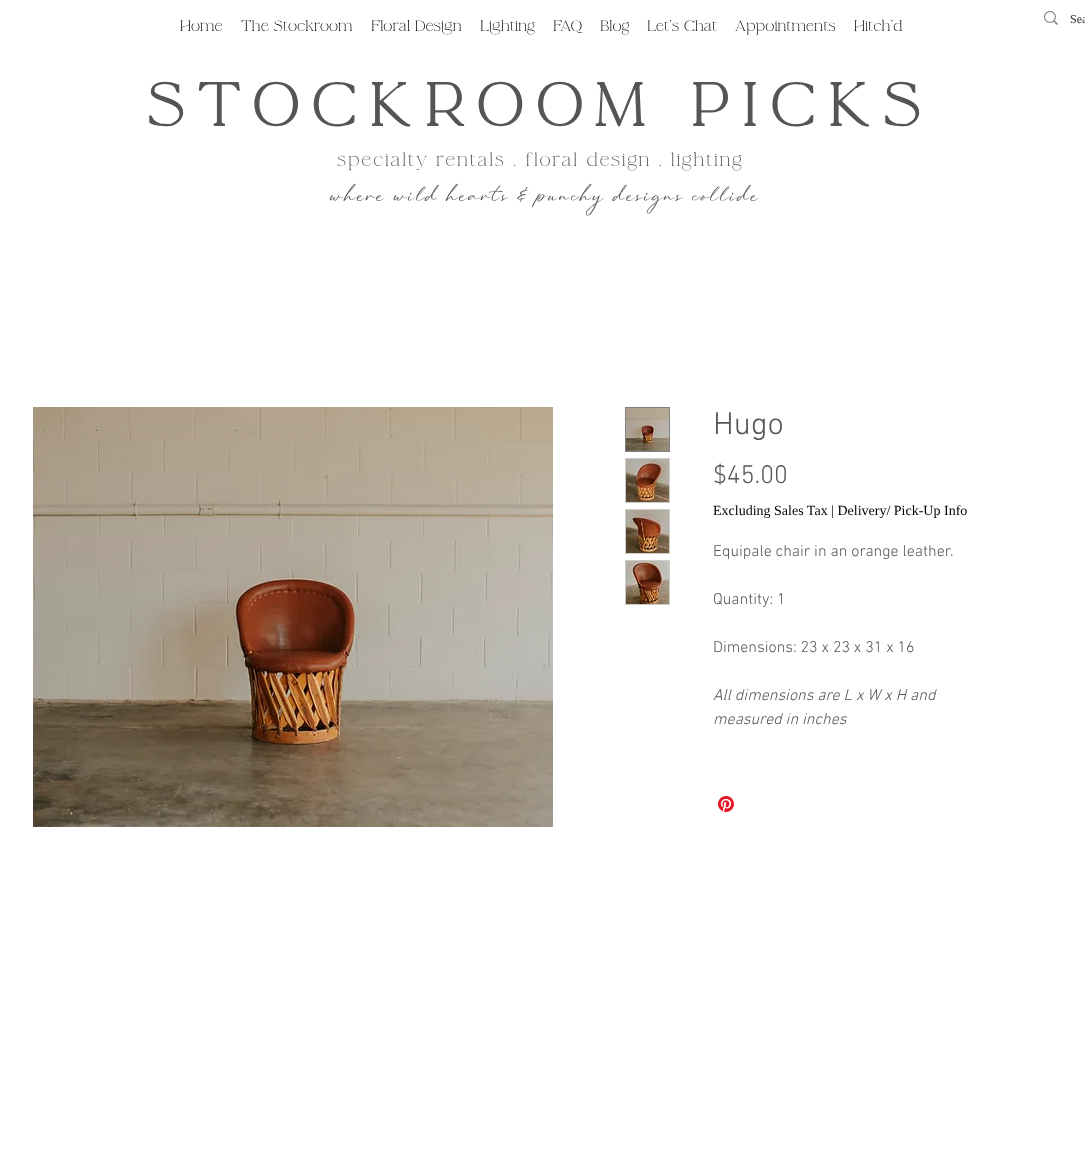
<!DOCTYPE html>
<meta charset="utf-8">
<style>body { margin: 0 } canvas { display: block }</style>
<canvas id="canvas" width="1085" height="1175"></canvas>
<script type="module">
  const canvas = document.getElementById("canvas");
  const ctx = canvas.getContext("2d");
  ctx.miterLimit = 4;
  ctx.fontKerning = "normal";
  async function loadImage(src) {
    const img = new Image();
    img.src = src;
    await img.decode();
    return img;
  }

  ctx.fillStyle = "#ffffff";
  ctx.fillRect(0, 0, 1085, 1175);
  ctx.font = "13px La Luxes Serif";
  ctx.fillStyle = "#000000";
  ctx.fillText("Home", 180, 31);
  ctx.fillText("The Stockroom", 241, 31);
  ctx.fillText("Floral Design", 371, 31);
  ctx.fillText("Lighting", 480, 31);
  ctx.fillText("FAQ", 553, 31);
  ctx.fillText("Blog", 600, 31);
  ctx.fillText("Let's Chat", 647, 31);
  ctx.fillText("Appointments", 735, 31);
  ctx.fillText("Hitch'd", 854, 31);
  ctx.drawImage(await loadImage("img1.png"), 1044, 11, 14, 14);
  ctx.font = "12px Liberation Serif";
  ctx.fillStyle = "#2a2a2a";
  ctx.fillText("Sea", 1070, 23);
  ctx.letterSpacing = "13.25px";
  ctx.font = "bold 53px La Luxes Serif";
  ctx.fillStyle = "#555555";
  ctx.fillText("STOCKROOM PICKS", 147, 126);
  ctx.letterSpacing = "1.6px";
  ctx.font = "16px La Luxes Serif";
  ctx.fillText("specialty rentals . floral design . lighting", 337, 166);
  ctx.wordSpacing = "1.5px";
  ctx.font = "16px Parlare";
  ctx.fillText("where wild hearts & punchy designs collide", 330, 201);
  ctx.drawImage(await loadImage("img2.png"), 33, 407, 520, 420);
  ctx.strokeStyle = "#808080";
  ctx.strokeRect(625.5, 407.5, 44, 44);
  ctx.drawImage(await loadImage("img3.png"), 626, 408, 43, 43);
  ctx.fillStyle = "#cccccc";
  ctx.fillRect(625, 458, 45, 45);
  ctx.drawImage(await loadImage("img4.png"), 626, 459, 43, 43);
  ctx.fillRect(625, 509, 45, 45);
  ctx.drawImage(await loadImage("img5.png"), 626, 510, 43, 43);
  ctx.fillRect(625, 560, 45, 45);
  ctx.drawImage(await loadImage("img6.png"), 626, 561, 43, 43);
  ctx.letterSpacing = "0px";
  ctx.wordSpacing = "0px";
  ctx.font = "300 32px 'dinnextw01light'";
  ctx.fillStyle = "#555555";
  ctx.fillText("Hugo", 713, 434);
  ctx.font = "300 26px 'dinnextw01light'";
  ctx.fillText("$45.00", 713, 483);
  ctx.font = "14px Liberation Serif";
  ctx.fillStyle = "#000000";
  ctx.fillText("Excluding Sales Tax | Delivery/ Pick-Up Info", 713, 515);
  ctx.font = "300 16px 'dinnextw01light'";
  ctx.fillStyle = "#555555";
  ctx.fillText("Equipale chair in an orange leather.", 713, 556);
  ctx.fillText("Quantity: 1", 713, 604);
  ctx.fillText("Dimensions: 23 x 23 x 31 x 16", 713, 652);
  ctx.font = "italic 300 16px 'dinnextw01light'";
  ctx.fillText("All dimensions are L x W x H and", 713, 700);
  ctx.fillText("measured in inches", 713, 724);
  ctx.drawImage(await loadImage("img7.png"), 718, 796, 16, 16);
</script>
